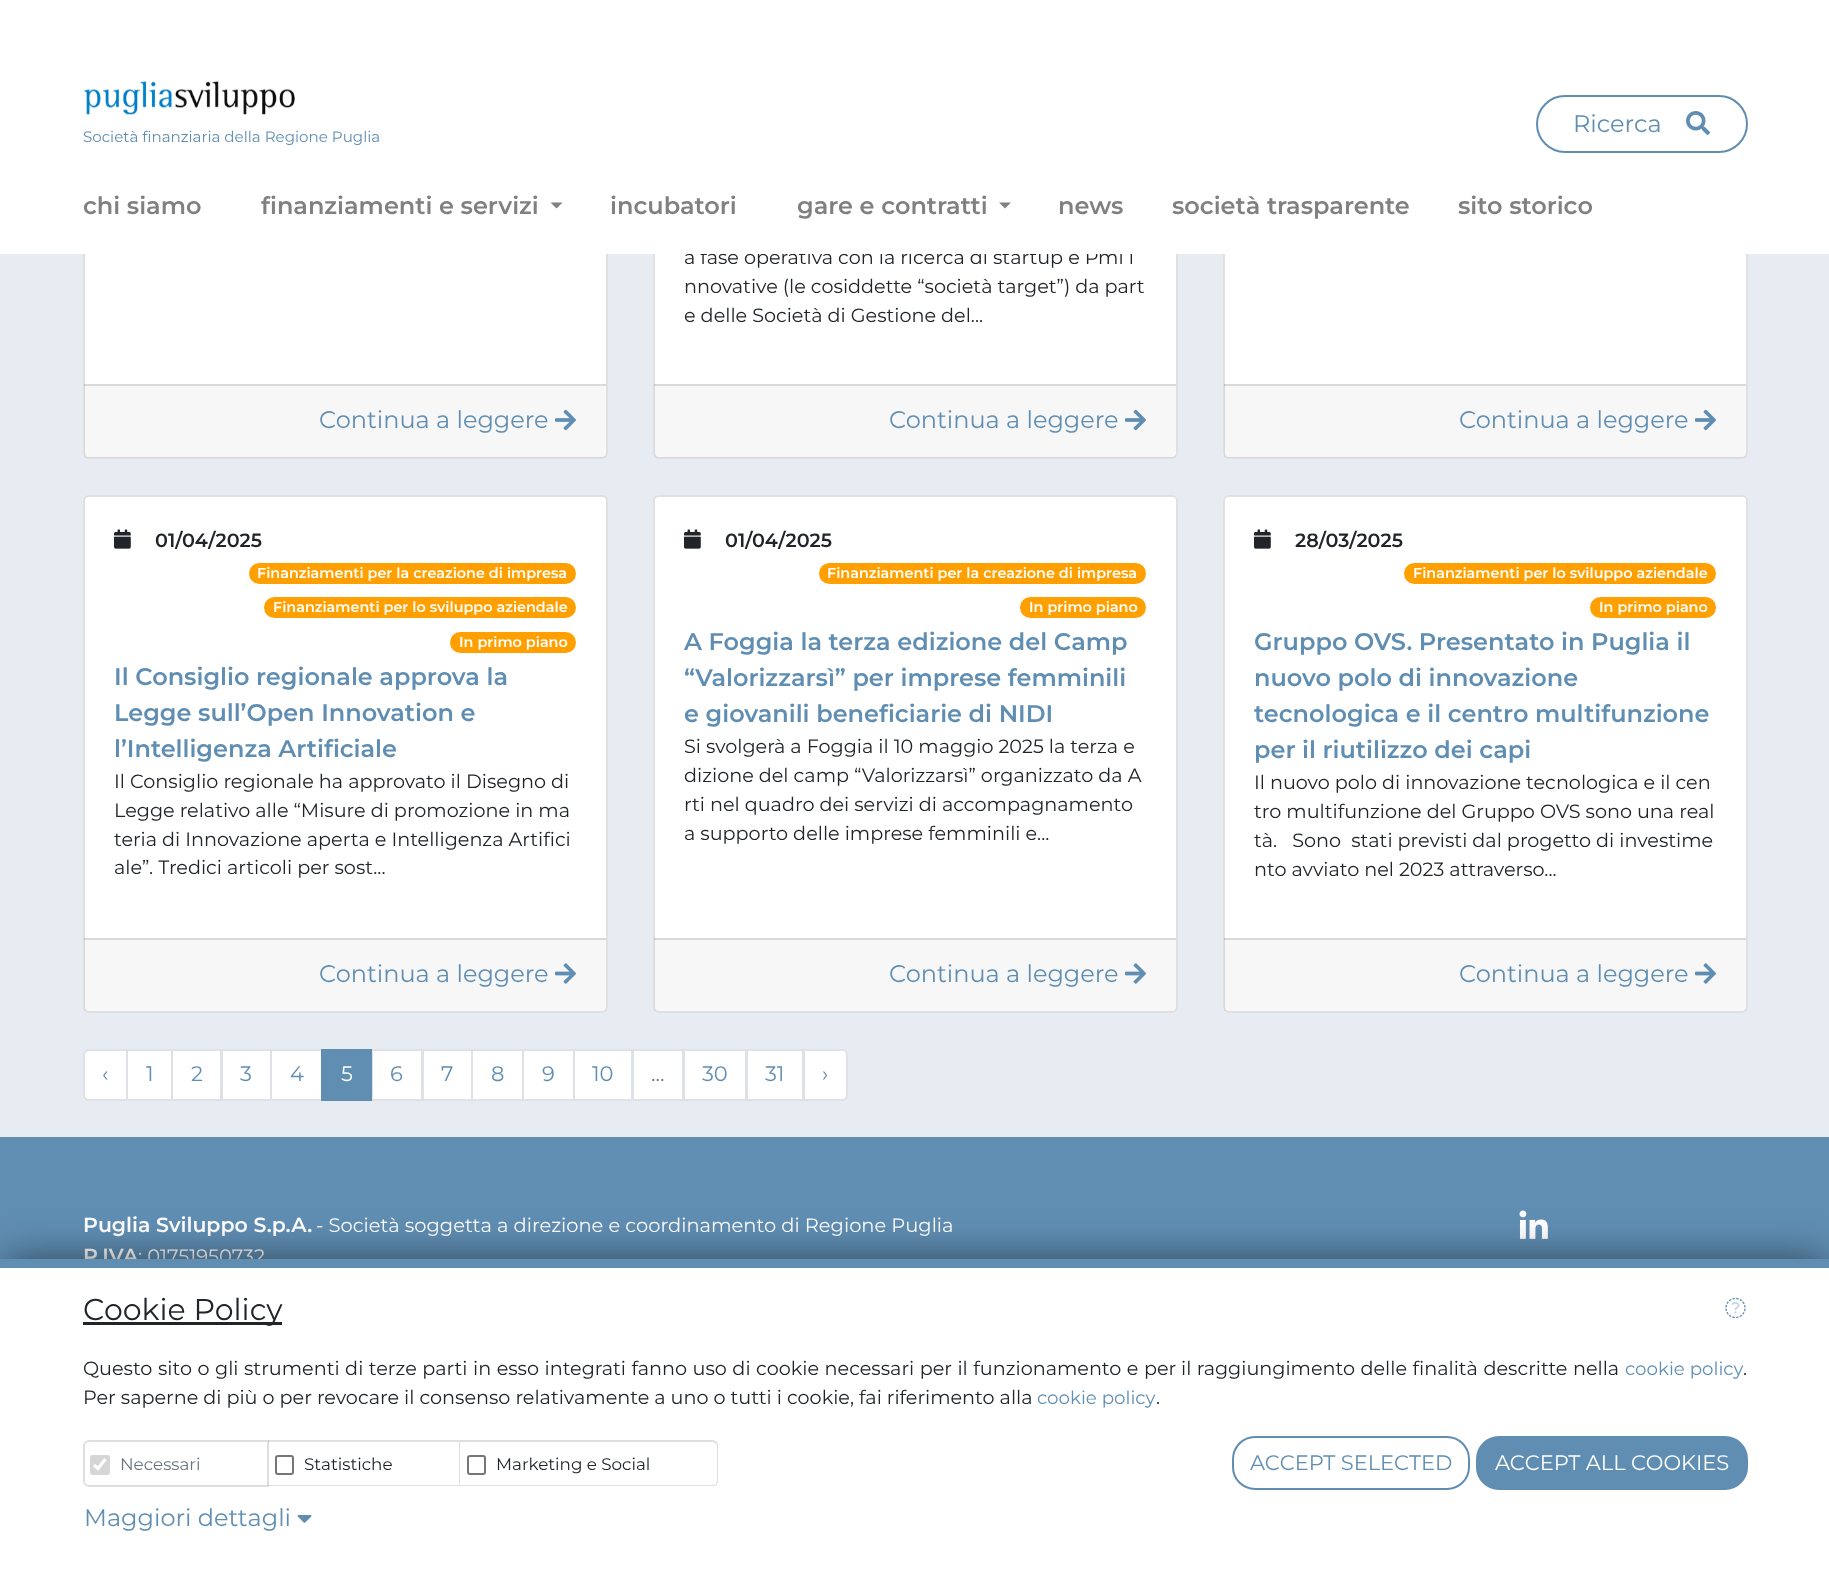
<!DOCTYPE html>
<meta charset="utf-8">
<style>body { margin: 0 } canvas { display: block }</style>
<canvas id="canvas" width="1829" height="1571"></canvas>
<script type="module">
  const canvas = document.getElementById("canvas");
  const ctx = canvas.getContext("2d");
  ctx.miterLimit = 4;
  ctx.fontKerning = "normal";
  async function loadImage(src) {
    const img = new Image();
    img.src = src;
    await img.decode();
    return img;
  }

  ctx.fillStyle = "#e6ecf2";
  ctx.fillRect(0, 0, 1829, 1571);
  ctx.fillStyle = "#ffffff";
  ctx.beginPath();
  ctx.roundRect(83, -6, 525, 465, 6);
  ctx.fill();
  ctx.beginPath();
  ctx.roundRect(84, -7, 523, 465, 5);
  ctx.strokeStyle = "rgba(0, 0, 0, 0.12)";
  ctx.lineWidth = 2;
  ctx.stroke();
  ctx.beginPath();
  ctx.roundRect(653, -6, 525, 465, 6);
  ctx.fill();
  ctx.beginPath();
  ctx.roundRect(654, -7, 523, 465, 5);
  ctx.stroke();
  ctx.font = "19.2px Montserrat";
  ctx.fillStyle = "#212529";
  ctx.fillText("a fase operativa con la ricerca di startup e Pmi i", 684, 264);
  ctx.fillStyle = "#ffffff";
  ctx.beginPath();
  ctx.roundRect(1223, -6, 525, 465, 6);
  ctx.fill();
  ctx.beginPath();
  ctx.roundRect(1224, -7, 523, 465, 5);
  ctx.stroke();
  ctx.fillRect(0, 0, 1829, 254);
  ctx.beginPath();
  ctx.roundRect(1537, 96, 210, 56, 28);
  ctx.strokeStyle = "#608eb3";
  ctx.stroke();
  ctx.font = "24px Montserrat";
  ctx.fillStyle = "#608eb3";
  ctx.fillText("Ricerca", 1573, 132);
  ctx.drawImage(await loadImage("img1.png"), 1686, 111, 24, 24);
  ctx.drawImage(await loadImage("img2.png"), 84, 81, 211, 34);
  ctx.font = "15.1px Montserrat";
  ctx.fillText("Società finanziaria della Regione Puglia", 83, 142);
  ctx.font = "600 24px Montserrat";
  ctx.fillStyle = "#808080";
  ctx.fillText("chi siamo", 83, 214);
  ctx.fillText("finanziamenti e servizi", 261, 214);
  ctx.beginPath();
  ctx.moveTo(550.5, 202.5);
  ctx.lineTo(562.5, 202.5);
  ctx.lineTo(556.5, 208.5);
  ctx.closePath();
  ctx.fill();
  ctx.fillText("incubatori", 610, 214);
  ctx.fillText("gare e contratti", 797, 214);
  ctx.beginPath();
  ctx.moveTo(999, 202.5);
  ctx.lineTo(1011, 202.5);
  ctx.lineTo(1005, 208.5);
  ctx.closePath();
  ctx.fill();
  ctx.fillText("news", 1058, 214);
  ctx.fillText("società trasparente", 1172, 214);
  ctx.fillText("sito storico", 1458, 214);
  ctx.fillStyle = "rgba(0, 0, 0, 0.03)";
  ctx.fillRect(84, 384, 522, 74);
  ctx.fillStyle = "rgba(0, 0, 0, 0.12)";
  ctx.fillRect(84, 384, 522, 2);
  ctx.font = "24px Montserrat";
  ctx.fillStyle = "#608eb3";
  ctx.fillText("Continua a leggere", 319, 428);
  ctx.drawImage(await loadImage("img3.png"), 555, 409, 21, 22);
  ctx.font = "19.2px Montserrat";
  ctx.fillStyle = "#212529";
  ctx.fillText("nnovative (le cosiddette “società target”) da part", 684, 293);
  ctx.fillText("e delle Società di Gestione del...", 684, 322);
  ctx.fillStyle = "rgba(0, 0, 0, 0.03)";
  ctx.fillRect(654, 384, 522, 74);
  ctx.fillStyle = "rgba(0, 0, 0, 0.12)";
  ctx.fillRect(654, 384, 522, 2);
  ctx.font = "24px Montserrat";
  ctx.fillStyle = "#608eb3";
  ctx.fillText("Continua a leggere", 889, 428);
  ctx.drawImage(await loadImage("img3.png"), 1125, 409, 21, 22);
  ctx.fillStyle = "rgba(0, 0, 0, 0.03)";
  ctx.fillRect(1224, 384, 522, 74);
  ctx.fillStyle = "rgba(0, 0, 0, 0.12)";
  ctx.fillRect(1224, 384, 522, 2);
  ctx.fillStyle = "#608eb3";
  ctx.fillText("Continua a leggere", 1459, 428);
  ctx.drawImage(await loadImage("img3.png"), 1695, 409, 21, 22);
  ctx.fillStyle = "#ffffff";
  ctx.beginPath();
  ctx.roundRect(83, 495, 525, 518, 6);
  ctx.fill();
  ctx.beginPath();
  ctx.roundRect(84, 496, 523, 516, 5);
  ctx.strokeStyle = "rgba(0, 0, 0, 0.12)";
  ctx.stroke();
  ctx.drawImage(await loadImage("img4.png"), 114, 529, 17, 20);
  ctx.font = "600 19.2px Montserrat";
  ctx.fillStyle = "#212529";
  ctx.fillText("01/04/2025", 155, 547);
  ctx.fillStyle = "#ffa000";
  ctx.beginPath();
  ctx.roundRect(249, 563, 327, 21, 10.5);
  ctx.fill();
  ctx.font = "600 14.4px Montserrat";
  ctx.fillStyle = "#ffffff";
  ctx.fillText("Finanziamenti per la creazione di impresa", 257, 578);
  ctx.fillStyle = "#ffa000";
  ctx.beginPath();
  ctx.roundRect(264, 597, 312, 21, 10.5);
  ctx.fill();
  ctx.fillStyle = "#ffffff";
  ctx.fillText("Finanziamenti per lo sviluppo aziendale", 273, 612);
  ctx.fillStyle = "#ffa000";
  ctx.beginPath();
  ctx.roundRect(450, 632, 126, 21, 10.5);
  ctx.fill();
  ctx.fillStyle = "#ffffff";
  ctx.fillText("In primo piano", 459, 647);
  ctx.font = "600 24px Montserrat";
  ctx.fillStyle = "#608eb3";
  ctx.fillText("Il Consiglio regionale approva la", 114, 685);
  ctx.fillText("Legge sull’Open Innovation e", 114, 721);
  ctx.fillText("l’Intelligenza Artificiale", 114, 757);
  ctx.font = "19.2px Montserrat";
  ctx.fillStyle = "#212529";
  ctx.fillText("Il Consiglio regionale ha approvato il Disegno di", 114, 788);
  ctx.fillText("Legge relativo alle “Misure di promozione in ma", 114, 817);
  ctx.fillText("teria di Innovazione aperta e Intelligenza Artifici", 114, 846);
  ctx.fillText("ale”. Tredici articoli per sost...", 114, 874);
  ctx.fillStyle = "rgba(0, 0, 0, 0.03)";
  ctx.fillRect(84, 938, 522, 73);
  ctx.fillStyle = "rgba(0, 0, 0, 0.12)";
  ctx.fillRect(84, 938, 522, 2);
  ctx.font = "24px Montserrat";
  ctx.fillStyle = "#608eb3";
  ctx.fillText("Continua a leggere", 319, 982);
  ctx.drawImage(await loadImage("img5.png"), 555, 963, 21, 21);
  ctx.fillStyle = "#ffffff";
  ctx.beginPath();
  ctx.roundRect(653, 495, 525, 518, 6);
  ctx.fill();
  ctx.beginPath();
  ctx.roundRect(654, 496, 523, 516, 5);
  ctx.stroke();
  ctx.drawImage(await loadImage("img4.png"), 684, 529, 17, 20);
  ctx.font = "600 19.2px Montserrat";
  ctx.fillStyle = "#212529";
  ctx.fillText("01/04/2025", 725, 547);
  ctx.fillStyle = "#ffa000";
  ctx.beginPath();
  ctx.roundRect(819, 563, 327, 21, 10.5);
  ctx.fill();
  ctx.font = "600 14.4px Montserrat";
  ctx.fillStyle = "#ffffff";
  ctx.fillText("Finanziamenti per la creazione di impresa", 827, 578);
  ctx.fillStyle = "#ffa000";
  ctx.beginPath();
  ctx.roundRect(1020, 597, 126, 21, 10.5);
  ctx.fill();
  ctx.fillStyle = "#ffffff";
  ctx.fillText("In primo piano", 1029, 612);
  ctx.font = "600 24px Montserrat";
  ctx.fillStyle = "#608eb3";
  ctx.fillText("A Foggia la terza edizione del Camp", 684, 650);
  ctx.fillText("“Valorizzarsì” per imprese femminili", 684, 686);
  ctx.fillText("e giovanili beneficiarie di NIDI", 684, 722);
  ctx.font = "19.2px Montserrat";
  ctx.fillStyle = "#212529";
  ctx.fillText("Si svolgerà a Foggia il 10 maggio 2025 la terza e", 684, 753);
  ctx.fillText("dizione del camp “Valorizzarsì” organizzato da A", 684, 782);
  ctx.fillText("rti nel quadro dei servizi di accompagnamento", 684, 811);
  ctx.fillText("a supporto delle imprese femminili e...", 684, 840);
  ctx.fillStyle = "rgba(0, 0, 0, 0.03)";
  ctx.fillRect(654, 938, 522, 73);
  ctx.fillStyle = "rgba(0, 0, 0, 0.12)";
  ctx.fillRect(654, 938, 522, 2);
  ctx.font = "24px Montserrat";
  ctx.fillStyle = "#608eb3";
  ctx.fillText("Continua a leggere", 889, 982);
  ctx.drawImage(await loadImage("img5.png"), 1125, 963, 21, 21);
  ctx.fillStyle = "#ffffff";
  ctx.beginPath();
  ctx.roundRect(1223, 495, 525, 518, 6);
  ctx.fill();
  ctx.beginPath();
  ctx.roundRect(1224, 496, 523, 516, 5);
  ctx.stroke();
  ctx.drawImage(await loadImage("img4.png"), 1254, 529, 17, 20);
  ctx.font = "600 19.2px Montserrat";
  ctx.fillStyle = "#212529";
  ctx.fillText("28/03/2025", 1295, 547);
  ctx.fillStyle = "#ffa000";
  ctx.beginPath();
  ctx.roundRect(1404, 563, 312, 21, 10.5);
  ctx.fill();
  ctx.font = "600 14.4px Montserrat";
  ctx.fillStyle = "#ffffff";
  ctx.fillText("Finanziamenti per lo sviluppo aziendale", 1413, 578);
  ctx.fillStyle = "#ffa000";
  ctx.beginPath();
  ctx.roundRect(1590, 597, 126, 21, 10.5);
  ctx.fill();
  ctx.fillStyle = "#ffffff";
  ctx.fillText("In primo piano", 1599, 612);
  ctx.font = "600 24px Montserrat";
  ctx.fillStyle = "#608eb3";
  ctx.fillText("Gruppo OVS. Presentato in Puglia il", 1254, 650);
  ctx.fillText("nuovo polo di innovazione", 1254, 686);
  ctx.fillText("tecnologica e il centro multifunzione", 1254, 722);
  ctx.fillText("per il riutilizzo dei capi", 1254, 758);
  ctx.font = "19.2px Montserrat";
  ctx.fillStyle = "#212529";
  ctx.fillText("Il nuovo polo di innovazione tecnologica e il cen", 1254, 789);
  ctx.fillText("tro multifunzione del Gruppo OVS sono una real", 1254, 818);
  ctx.fillText("tà.   Sono  stati previsti dal progetto di investime", 1254, 847);
  ctx.fillText("nto avviato nel 2023 attraverso...", 1254, 876);
  ctx.fillStyle = "rgba(0, 0, 0, 0.03)";
  ctx.fillRect(1224, 938, 522, 73);
  ctx.fillStyle = "rgba(0, 0, 0, 0.12)";
  ctx.fillRect(1224, 938, 522, 2);
  ctx.font = "24px Montserrat";
  ctx.fillStyle = "#608eb3";
  ctx.fillText("Continua a leggere", 1459, 982);
  ctx.drawImage(await loadImage("img5.png"), 1695, 963, 21, 21);
  ctx.fillStyle = "#ffffff";
  ctx.beginPath();
  ctx.roundRect(84, 1050, 43, 50, [5, 0, 0, 5]);
  ctx.fill();
  ctx.strokeStyle = "#dee2e6";
  ctx.stroke();
  ctx.font = "21px Montserrat";
  ctx.fillStyle = "#608eb3";
  ctx.fillText("‹", 102, 1081);
  ctx.fillStyle = "#ffffff";
  ctx.beginPath();
  ctx.rect(127, 1050, 45, 50);
  ctx.fill();
  ctx.stroke();
  ctx.fillStyle = "#608eb3";
  ctx.fillText("1", 146, 1081);
  ctx.fillStyle = "#ffffff";
  ctx.beginPath();
  ctx.rect(172, 1050, 49, 50);
  ctx.fill();
  ctx.stroke();
  ctx.fillStyle = "#608eb3";
  ctx.fillText("2", 191, 1081);
  ctx.fillStyle = "#ffffff";
  ctx.beginPath();
  ctx.rect(222, 1050, 49, 50);
  ctx.fill();
  ctx.stroke();
  ctx.fillStyle = "#608eb3";
  ctx.fillText("3", 240, 1081);
  ctx.fillStyle = "#ffffff";
  ctx.beginPath();
  ctx.rect(271, 1050, 51, 50);
  ctx.fill();
  ctx.stroke();
  ctx.fillStyle = "#608eb3";
  ctx.fillText("4", 290, 1081);
  ctx.fillStyle = "#ffffff";
  ctx.beginPath();
  ctx.rect(372, 1050, 50, 50);
  ctx.fill();
  ctx.stroke();
  ctx.fillStyle = "#608eb3";
  ctx.fillRect(321, 1049, 51, 52);
  ctx.fillStyle = "#ffffff";
  ctx.fillText("5", 341, 1081);
  ctx.fillStyle = "#608eb3";
  ctx.fillText("6", 390, 1081);
  ctx.fillStyle = "#ffffff";
  ctx.beginPath();
  ctx.rect(423, 1050, 49, 50);
  ctx.fill();
  ctx.stroke();
  ctx.fillStyle = "#608eb3";
  ctx.fillText("7", 441, 1081);
  ctx.fillStyle = "#ffffff";
  ctx.beginPath();
  ctx.rect(472, 1050, 51, 50);
  ctx.fill();
  ctx.stroke();
  ctx.fillStyle = "#608eb3";
  ctx.fillText("8", 491, 1081);
  ctx.fillStyle = "#ffffff";
  ctx.beginPath();
  ctx.rect(523, 1050, 51, 50);
  ctx.fill();
  ctx.stroke();
  ctx.fillStyle = "#608eb3";
  ctx.fillText("9", 542, 1081);
  ctx.fillStyle = "#ffffff";
  ctx.beginPath();
  ctx.rect(574, 1050, 58, 50);
  ctx.fill();
  ctx.stroke();
  ctx.fillStyle = "#608eb3";
  ctx.fillText("10", 592, 1081);
  ctx.fillStyle = "#ffffff";
  ctx.beginPath();
  ctx.rect(633, 1050, 50, 50);
  ctx.fill();
  ctx.stroke();
  ctx.fillStyle = "#6c757d";
  ctx.fillText("...", 651, 1081);
  ctx.fillStyle = "#ffffff";
  ctx.beginPath();
  ctx.rect(684, 1050, 62, 50);
  ctx.fill();
  ctx.stroke();
  ctx.fillStyle = "#608eb3";
  ctx.fillText("30", 702, 1081);
  ctx.fillStyle = "#ffffff";
  ctx.beginPath();
  ctx.rect(747, 1050, 56, 50);
  ctx.fill();
  ctx.stroke();
  ctx.fillStyle = "#608eb3";
  ctx.fillText("31", 765, 1081);
  ctx.fillStyle = "#ffffff";
  ctx.beginPath();
  ctx.roundRect(804, 1050, 43, 50, [0, 5, 5, 0]);
  ctx.fill();
  ctx.stroke();
  ctx.fillStyle = "#608eb3";
  ctx.fillText("›", 822, 1081);
  ctx.fillRect(0, 1137, 1829, 122);
  ctx.font = "600 20.5px Montserrat";
  ctx.fillStyle = "#ffffff";
  ctx.fillText("Puglia Sviluppo S.p.A.", 83, 1232);
  ctx.font = "19.45px Montserrat";
  ctx.fillText("- Società soggetta a direzione e coordinamento di Regione Puglia", 316, 1232);
  ctx.font = "600 20.5px Montserrat";
  ctx.fillText("P.IVA", 83, 1263);
  ctx.font = "19.45px Montserrat";
  ctx.fillText(": 01751950732", 138, 1263);
  ctx.drawImage(await loadImage("img6.png"), 1519, 1210, 29, 29);
  ctx.fillStyle = "rgba(0, 0, 0, 0.55)";
  ctx.filter = "blur(21px)";
  ctx.beginPath();
  ctx.rect(5, 1260, 1821, 305);
  ctx.fill();
  ctx.filter = "none";
  ctx.fillStyle = "#ffffff";
  ctx.fillRect(0, 1268, 1829, 303);
  ctx.fillStyle = "#608eb3";
  ctx.fillRect(0, 1259, 1829, 9);
  ctx.fillStyle = "#212529";
  ctx.fillRect(83, 1322, 199, 3);
  ctx.font = "30px Montserrat";
  ctx.fillText("Cookie Policy", 83, 1320);
  ctx.drawImage(await loadImage("img7.png"), 1725, 1297, 21, 22);
  ctx.wordSpacing = "0.5px";
  ctx.font = "19.2px Montserrat";
  ctx.fillText("Questo sito o gli strumenti di terze parti in esso integrati fanno uso di cookie necessari per il funzionamento e per", 83, 1375);
  ctx.fillText("il raggiungimento delle finalità descritte nella", 1181, 1375);
  ctx.wordSpacing = "0px";
  ctx.font = "18.25px Montserrat";
  ctx.fillStyle = "#608eb3";
  ctx.fillText("cookie policy", 1625, 1375);
  ctx.font = "19.2px Montserrat";
  ctx.fillStyle = "#212529";
  ctx.fillText(".", 1743, 1375);
  ctx.fillText("Per saperne di più o per revocare il consenso relativamente a uno o tutti i cookie, fai riferimento alla", 83, 1404);
  ctx.font = "18.25px Montserrat";
  ctx.fillStyle = "#608eb3";
  ctx.fillText("cookie policy", 1037, 1404);
  ctx.font = "19.2px Montserrat";
  ctx.fillStyle = "#212529";
  ctx.fillText(".", 1156, 1404);
  ctx.beginPath();
  ctx.roundRect(84, 1441, 184, 45, [5, 0, 0, 5]);
  ctx.strokeStyle = "#dfdfdf";
  ctx.stroke();
  ctx.fillStyle = "#d6d6d6";
  ctx.beginPath();
  ctx.roundRect(90, 1455, 20, 20, 3);
  ctx.fill();
  ctx.beginPath();
  ctx.moveTo(94, 1465);
  ctx.lineTo(98, 1468.5);
  ctx.lineTo(105.5, 1459);
  ctx.strokeStyle = "#ffffff";
  ctx.lineWidth = 3.1;
  ctx.stroke();
  ctx.font = "16.75px Montserrat";
  ctx.fillStyle = "#6c757d";
  ctx.fillText("Necessari", 120, 1470);
  ctx.fillStyle = "rgba(0, 0, 0, 0.12)";
  ctx.beginPath();
  ctx.moveTo(268, 1440);
  ctx.lineTo(460, 1440);
  ctx.lineTo(459, 1442);
  ctx.lineTo(268, 1442);
  ctx.closePath();
  ctx.fill();
  ctx.beginPath();
  ctx.moveTo(460, 1440);
  ctx.lineTo(460, 1486);
  ctx.lineTo(459, 1485);
  ctx.lineTo(459, 1442);
  ctx.closePath();
  ctx.fill();
  ctx.beginPath();
  ctx.moveTo(460, 1486);
  ctx.lineTo(268, 1486);
  ctx.lineTo(268, 1485);
  ctx.lineTo(459, 1485);
  ctx.closePath();
  ctx.fill();
  ctx.beginPath();
  ctx.roundRect(276, 1456, 17, 18, 2);
  ctx.strokeStyle = "#767676";
  ctx.lineWidth = 2;
  ctx.stroke();
  ctx.fillStyle = "#212529";
  ctx.fillText("Statistiche", 304, 1470);
  ctx.fillStyle = "#dfdfdf";
  ctx.beginPath();
  ctx.moveTo(460, 1440);
  ctx.lineTo(712, 1440);
  ctx.bezierCurveTo(716, 1440, 718, 1443, 718, 1446);
  ctx.lineTo(718, 1480);
  ctx.bezierCurveTo(718, 1484, 716, 1486, 712, 1486);
  ctx.lineTo(460, 1486);
  ctx.closePath();
  ctx.moveTo(460, 1442);
  ctx.lineTo(712, 1442);
  ctx.bezierCurveTo(715, 1442, 717, 1444, 717, 1446);
  ctx.lineTo(717, 1480);
  ctx.bezierCurveTo(717, 1483, 715, 1485, 712, 1485);
  ctx.lineTo(460, 1485);
  ctx.closePath();
  ctx.fill("evenodd");
  ctx.beginPath();
  ctx.roundRect(468, 1456, 17, 18, 2);
  ctx.stroke();
  ctx.fillStyle = "#212529";
  ctx.fillText("Marketing e Social", 496, 1470);
  ctx.beginPath();
  ctx.roundRect(1233, 1437, 236, 52, 22);
  ctx.strokeStyle = "#608eb3";
  ctx.stroke();
  ctx.font = "21px Montserrat";
  ctx.fillStyle = "#608eb3";
  ctx.fillText("ACCEPT SELECTED", 1250, 1470);
  ctx.beginPath();
  ctx.roundRect(1477, 1437, 270, 52, 22);
  ctx.fill();
  ctx.stroke();
  ctx.fillStyle = "#ffffff";
  ctx.fillText("ACCEPT ALL COOKIES", 1495, 1470);
  ctx.font = "24px Montserrat";
  ctx.fillStyle = "#608eb3";
  ctx.fillText("Maggiori dettagli", 84, 1526);
  ctx.drawImage(await loadImage("img8.png"), 297, 1515, 15, 8);
</script>
